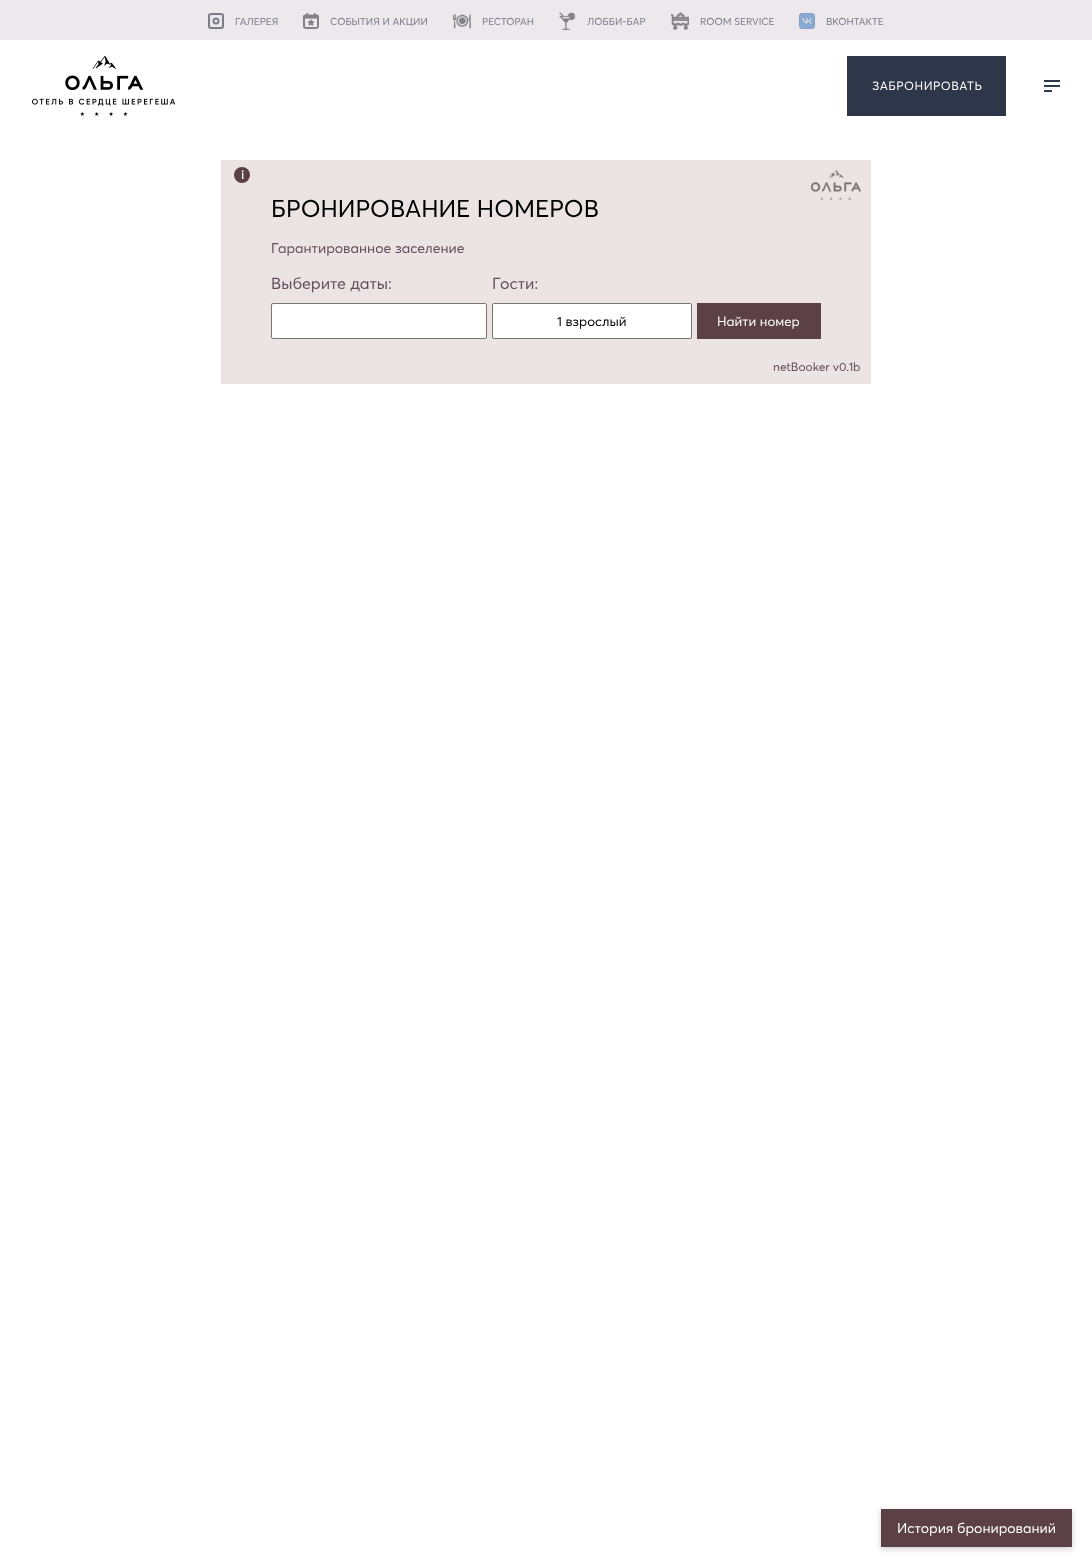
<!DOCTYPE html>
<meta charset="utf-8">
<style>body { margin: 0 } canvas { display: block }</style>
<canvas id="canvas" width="1092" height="1567"></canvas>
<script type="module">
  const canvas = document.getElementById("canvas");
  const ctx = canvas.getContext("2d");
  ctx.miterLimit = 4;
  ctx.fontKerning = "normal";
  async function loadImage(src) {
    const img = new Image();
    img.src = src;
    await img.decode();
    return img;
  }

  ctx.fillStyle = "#ffffff";
  ctx.fillRect(0, 0, 1092, 1567);
  ctx.fillStyle = "#ede8ec";
  ctx.fillRect(0, 0, 1092, 40);
  ctx.beginPath();
  ctx.roundRect(209, 14, 14, 14, 2);
  ctx.strokeStyle = "#7a7d8a";
  ctx.lineWidth = 2;
  ctx.stroke();
  ctx.beginPath();
  ctx.arc(216, 21, 2.5, 0, Math.PI * 2);
  ctx.stroke();
  ctx.font = "10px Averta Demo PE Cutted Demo";
  ctx.fillStyle = "#7a7d8a";
  ctx.fillText("ГАЛЕРЕЯ", 235, 25);
  ctx.drawImage(await loadImage("img1.png"), 303, 13, 16, 16);
  ctx.fillText("СОБЫТИЯ И АКЦИИ", 330, 25);
  ctx.drawImage(await loadImage("img2.png"), 453, 13, 18, 16);
  ctx.fillText("РЕСТОРАН", 482, 25);
  ctx.drawImage(await loadImage("img3.png"), 559, 12, 17, 18);
  ctx.fillText("ЛОББИ-БАР", 587, 25);
  ctx.drawImage(await loadImage("img4.png"), 671, 12, 18, 18);
  ctx.fillText("ROOM SERVICE", 700, 25);
  ctx.drawImage(await loadImage("img5.png"), 799, 13, 16, 16);
  ctx.fillText("ВКОНТАКТЕ", 826, 25);
  ctx.drawImage(await loadImage("img6.png"), 32, 56, 143, 60);
  ctx.fillStyle = "#2e3649";
  ctx.fillRect(847, 56, 159, 60);
  ctx.letterSpacing = "0.5px";
  ctx.font = "12px Averta Demo PE Cutted Demo";
  ctx.fillStyle = "#ffffff";
  ctx.fillText("ЗАБРОНИРОВАТЬ", 872, 90);
  ctx.fillStyle = "#2e3649";
  ctx.fillRect(1044, 80, 16, 2);
  ctx.fillRect(1044, 85, 16, 2);
  ctx.fillRect(1044, 90, 8, 2);
  ctx.fillStyle = "#ece3e3";
  ctx.fillRect(221, 160, 650, 224);
  ctx.fillStyle = "#5b4146";
  ctx.beginPath();
  ctx.arc(242, 175, 8, 0, Math.PI * 2);
  ctx.fill();
  ctx.letterSpacing = "0px";
  ctx.font = "bold 12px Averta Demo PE";
  ctx.fillStyle = "#ffffff";
  ctx.fillText("i", 241, 179);
  ctx.drawImage(await loadImage("img7.png"), 811, 170, 50, 30);
  ctx.font = "24px Averta Demo PE";
  ctx.fillStyle = "#000000";
  ctx.fillText("БРОНИРОВАНИЕ НОМЕРОВ", 271, 217);
  ctx.font = "14px Averta Demo PE";
  ctx.fillStyle = "#624e5e";
  ctx.fillText("Гарантированное заселение", 271, 253);
  ctx.font = "16px Averta Demo PE";
  ctx.fillText("Выберите даты:", 271, 289);
  ctx.fillStyle = "#ffffff";
  ctx.beginPath();
  ctx.roundRect(271.5, 303.5, 215, 35, 1.5);
  ctx.fill();
  ctx.strokeStyle = "#767676";
  ctx.lineWidth = 1;
  ctx.stroke();
  ctx.fillStyle = "#624e5e";
  ctx.fillText("Гости:", 492, 289);
  ctx.fillStyle = "#ffffff";
  ctx.beginPath();
  ctx.roundRect(492.5, 303.5, 199, 35, 1.5);
  ctx.fill();
  ctx.stroke();
  ctx.font = "13.25px Averta Demo PE";
  ctx.fillStyle = "#000000";
  ctx.fillText("1 взрослый", 557, 326);
  ctx.fillStyle = "#5b4146";
  ctx.fillRect(697, 303, 124, 36);
  ctx.fillStyle = "#ffffff";
  ctx.fillText("Найти номер", 717, 326);
  ctx.font = "12px Averta Demo PE";
  ctx.fillStyle = "#624e5e";
  ctx.fillText("netBooker v0.1b", 773, 371);
  ctx.fillStyle = "rgba(0, 0, 0, 0.2)";
  ctx.filter = "blur(3px)";
  ctx.beginPath();
  ctx.rect(881, 1511, 191, 38);
  ctx.fill();
  ctx.filter = "none";
  ctx.fillStyle = "#5b4146";
  ctx.fillRect(881, 1509, 191, 38);
  ctx.font = "14px Averta Demo PE";
  ctx.fillStyle = "#ffffff";
  ctx.fillText("История бронирований", 897, 1533);
</script>
